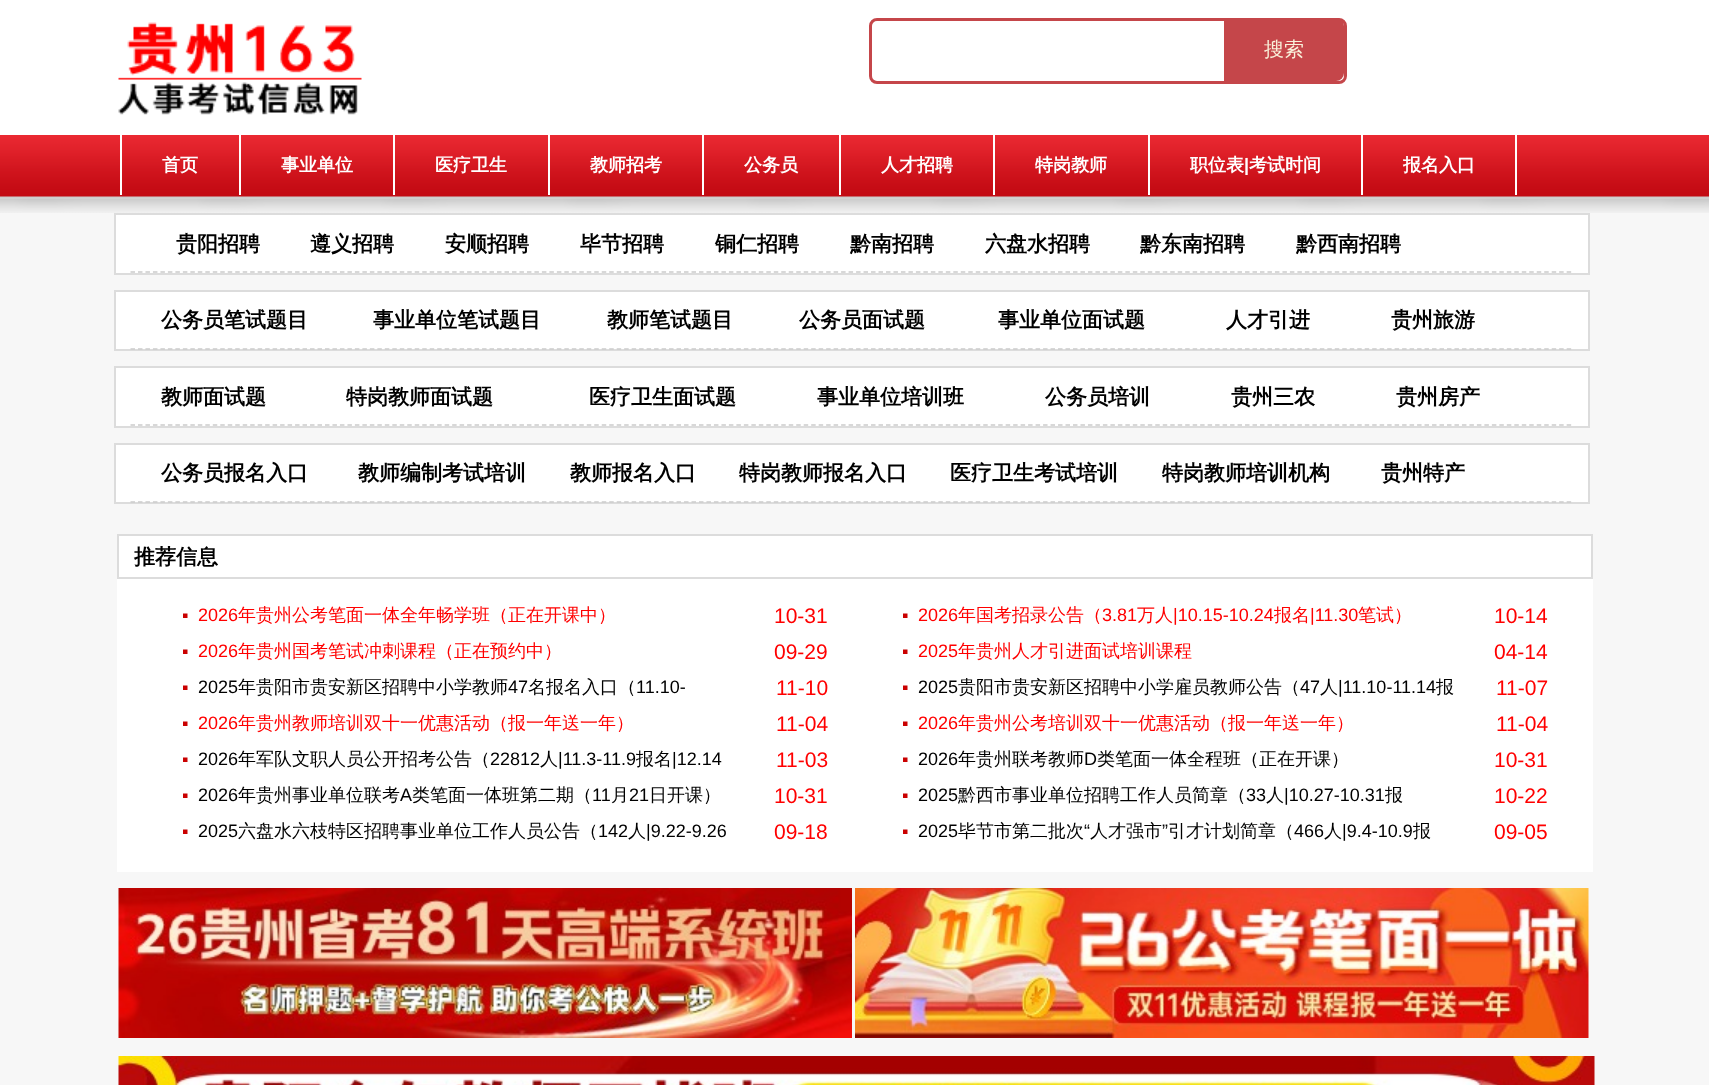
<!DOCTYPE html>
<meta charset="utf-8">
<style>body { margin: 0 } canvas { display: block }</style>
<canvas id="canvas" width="1709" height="1085"></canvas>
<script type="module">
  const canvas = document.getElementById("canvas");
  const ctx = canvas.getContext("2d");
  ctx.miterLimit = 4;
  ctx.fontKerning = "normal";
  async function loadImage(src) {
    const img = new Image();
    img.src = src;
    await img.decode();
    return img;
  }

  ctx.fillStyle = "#f7f7f7";
  ctx.fillRect(0, 0, 1709, 1085);
  ctx.fillStyle = "#ffffff";
  ctx.fillRect(0, 0, 1709, 198);
  ctx.drawImage(await loadImage("img1.png"), 0, 135, 1709, 63);
  ctx.drawImage(await loadImage("img2.png"), 118, 22, 244, 93);
  ctx.beginPath();
  ctx.roundRect(870.5, 19.5, 475, 63, 6.5);
  ctx.strokeStyle = "#c5464a";
  ctx.lineWidth = 3;
  ctx.stroke();
  ctx.fillStyle = "#c5464a";
  ctx.beginPath();
  ctx.roundRect(1224, 18, 120, 63, [0, 8, 8, 0]);
  ctx.fill();
  ctx.font = "500 20px WenQuanYi Zen Hei";
  ctx.fillStyle = "#f9f0da";
  ctx.fillText("搜索", 1264, 56);
  ctx.fillStyle = "#ffffff";
  ctx.fillRect(120, 135, 2, 60);
  ctx.fillRect(239, 135, 2, 60);
  ctx.font = "bold 18px WenQuanYi Zen Hei";
  ctx.fillText("首页", 162, 171);
  ctx.fillRect(393, 135, 2, 60);
  ctx.fillText("事业单位", 281, 171);
  ctx.fillRect(548, 135, 2, 60);
  ctx.fillText("医疗卫生", 435, 171);
  ctx.fillRect(702, 135, 2, 60);
  ctx.fillText("教师招考", 590, 171);
  ctx.fillRect(839, 135, 2, 60);
  ctx.fillText("公务员", 744, 171);
  ctx.fillRect(993, 135, 2, 60);
  ctx.fillText("人才招聘", 881, 171);
  ctx.fillRect(1148, 135, 2, 60);
  ctx.fillText("特岗教师", 1035, 171);
  ctx.fillRect(1361, 135, 2, 60);
  ctx.fillText("职位表", 1190, 171);
  ctx.font = "bold 18px Liberation Sans";
  ctx.fillText("|", 1244, 171);
  ctx.font = "bold 18px WenQuanYi Zen Hei";
  ctx.fillText("考试时间", 1249, 171);
  ctx.fillRect(1515, 135, 2, 60);
  ctx.fillText("报名入口", 1403, 171);
  ctx.drawImage(await loadImage("img3.png"), 0, 198, 1709, 15);
  ctx.beginPath();
  ctx.rect(115, 214, 1474, 60);
  ctx.fill();
  ctx.strokeStyle = "#dcdcdc";
  ctx.lineWidth = 2;
  ctx.stroke();
  ctx.beginPath();
  ctx.moveTo(130.5, 272);
  ctx.lineTo(1573.5, 272);
  ctx.strokeStyle = "#cccccc";
  ctx.lineWidth = 1.5;
  ctx.setLineDash([4.5, 2.98]);
  ctx.stroke();
  ctx.font = "bold 21px WenQuanYi Zen Hei";
  ctx.fillStyle = "#000000";
  ctx.fillText("贵阳招聘", 176, 251);
  ctx.fillText("遵义招聘", 310, 251);
  ctx.fillText("安顺招聘", 445, 251);
  ctx.fillText("毕节招聘", 580, 251);
  ctx.fillText("铜仁招聘", 715, 251);
  ctx.fillText("黔南招聘", 850, 251);
  ctx.fillText("六盘水招聘", 985, 251);
  ctx.fillText("黔东南招聘", 1140, 251);
  ctx.fillText("黔西南招聘", 1296, 251);
  ctx.fillStyle = "#ffffff";
  ctx.beginPath();
  ctx.rect(115, 291, 1474, 59);
  ctx.fill();
  ctx.strokeStyle = "#dcdcdc";
  ctx.lineWidth = 2;
  ctx.setLineDash([]);
  ctx.stroke();
  ctx.beginPath();
  ctx.moveTo(130.5, 349);
  ctx.lineTo(1573.5, 349);
  ctx.strokeStyle = "#cccccc";
  ctx.lineWidth = 1.5;
  ctx.setLineDash([4.5, 2.98]);
  ctx.stroke();
  ctx.fillStyle = "#000000";
  ctx.fillText("公务员笔试题目", 161, 327);
  ctx.fillText("事业单位笔试题目", 373, 327);
  ctx.fillText("教师笔试题目", 607, 327);
  ctx.fillText("公务员面试题", 799, 327);
  ctx.fillText("事业单位面试题", 998, 327);
  ctx.fillText("人才引进", 1226, 327);
  ctx.fillText("贵州旅游", 1391, 327);
  ctx.fillStyle = "#ffffff";
  ctx.beginPath();
  ctx.rect(115, 367, 1474, 60);
  ctx.fill();
  ctx.strokeStyle = "#dcdcdc";
  ctx.lineWidth = 2;
  ctx.setLineDash([]);
  ctx.stroke();
  ctx.beginPath();
  ctx.moveTo(130.5, 425);
  ctx.lineTo(1573.5, 425);
  ctx.strokeStyle = "#cccccc";
  ctx.lineWidth = 1.5;
  ctx.setLineDash([4.5, 2.98]);
  ctx.stroke();
  ctx.fillStyle = "#000000";
  ctx.fillText("教师面试题", 161, 404);
  ctx.fillText("特岗教师面试题", 346, 404);
  ctx.fillText("医疗卫生面试题", 589, 404);
  ctx.fillText("事业单位培训班", 817, 404);
  ctx.fillText("公务员培训", 1045, 404);
  ctx.fillText("贵州三农", 1231, 404);
  ctx.fillText("贵州房产", 1396, 404);
  ctx.fillStyle = "#ffffff";
  ctx.beginPath();
  ctx.rect(115, 444, 1474, 59);
  ctx.fill();
  ctx.strokeStyle = "#dcdcdc";
  ctx.lineWidth = 2;
  ctx.setLineDash([]);
  ctx.stroke();
  ctx.beginPath();
  ctx.moveTo(130.5, 502);
  ctx.lineTo(1573.5, 502);
  ctx.strokeStyle = "#cccccc";
  ctx.lineWidth = 1.5;
  ctx.setLineDash([4.5, 2.98]);
  ctx.stroke();
  ctx.fillStyle = "#000000";
  ctx.fillText("公务员报名入口", 161, 480);
  ctx.fillText("教师编制考试培训", 358, 480);
  ctx.fillText("教师报名入口", 570, 480);
  ctx.fillText("特岗教师报名入口", 739, 480);
  ctx.fillText("医疗卫生考试培训", 950, 480);
  ctx.fillText("特岗教师培训机构", 1162, 480);
  ctx.fillText("贵州特产", 1381, 480);
  ctx.fillStyle = "#ffffff";
  ctx.fillRect(117, 536, 1476, 336);
  ctx.strokeStyle = "#dcdcdc";
  ctx.lineWidth = 2;
  ctx.setLineDash([]);
  ctx.strokeRect(118, 535, 1474, 43);
  ctx.fillStyle = "#000000";
  ctx.fillText("推荐信息", 134, 564);
  ctx.drawImage(await loadImage("img4.png"), 183, 613, 5, 5);
  ctx.font = "18px Liberation Sans";
  ctx.fillStyle = "#ff0000";
  ctx.fillText("2026", 198, 621);
  ctx.font = "500 18px WenQuanYi Zen Hei";
  ctx.fillText("年贵州公考笔面一体全年畅学班（正在开课中）", 238, 621);
  ctx.font = "21px Liberation Sans";
  ctx.fillText("10-31", 774, 623);
  ctx.drawImage(await loadImage("img4.png"), 903, 613, 5, 5);
  ctx.font = "18px Liberation Sans";
  ctx.fillText("2026", 918, 621);
  ctx.font = "500 18px WenQuanYi Zen Hei";
  ctx.fillText("年国考招录公告（", 958, 621);
  ctx.font = "18px Liberation Sans";
  ctx.fillText("3.81", 1102, 621);
  ctx.font = "500 18px WenQuanYi Zen Hei";
  ctx.fillText("万人", 1137, 621);
  ctx.font = "18px Liberation Sans";
  ctx.fillText("|10.15-10.24", 1173, 621);
  ctx.font = "500 18px WenQuanYi Zen Hei";
  ctx.fillText("报名", 1274, 621);
  ctx.font = "18px Liberation Sans";
  ctx.fillText("|11.30", 1310, 621);
  ctx.font = "500 18px WenQuanYi Zen Hei";
  ctx.fillText("笔试）", 1358, 621);
  ctx.font = "21px Liberation Sans";
  ctx.fillText("10-14", 1494, 623);
  ctx.drawImage(await loadImage("img4.png"), 183, 649, 5, 5);
  ctx.font = "18px Liberation Sans";
  ctx.fillText("2026", 198, 657);
  ctx.font = "500 18px WenQuanYi Zen Hei";
  ctx.fillText("年贵州国考笔试冲刺课程（正在预约中）", 238, 657);
  ctx.font = "21px Liberation Sans";
  ctx.fillText("09-29", 774, 659);
  ctx.drawImage(await loadImage("img4.png"), 903, 649, 5, 5);
  ctx.font = "18px Liberation Sans";
  ctx.fillText("2025", 918, 657);
  ctx.font = "500 18px WenQuanYi Zen Hei";
  ctx.fillText("年贵州人才引进面试培训课程", 958, 657);
  ctx.font = "21px Liberation Sans";
  ctx.fillText("04-14", 1494, 659);
  ctx.drawImage(await loadImage("img4.png"), 183, 685, 5, 5);
  ctx.font = "18px Liberation Sans";
  ctx.fillStyle = "#000000";
  ctx.fillText("2025", 198, 693);
  ctx.font = "500 18px WenQuanYi Zen Hei";
  ctx.fillText("年贵阳市贵安新区招聘中小学教师", 238, 693);
  ctx.font = "18px Liberation Sans";
  ctx.fillText("47", 508, 693);
  ctx.font = "500 18px WenQuanYi Zen Hei";
  ctx.fillText("名报名入口（", 528, 693);
  ctx.font = "18px Liberation Sans";
  ctx.fillText("11.10-", 636, 693);
  ctx.font = "21px Liberation Sans";
  ctx.fillStyle = "#ff0000";
  ctx.fillText("11-10", 776, 695);
  ctx.drawImage(await loadImage("img4.png"), 903, 685, 5, 5);
  ctx.font = "18px Liberation Sans";
  ctx.fillStyle = "#000000";
  ctx.fillText("2025", 918, 693);
  ctx.font = "500 18px WenQuanYi Zen Hei";
  ctx.fillText("贵阳市贵安新区招聘中小学雇员教师公告（", 958, 693);
  ctx.font = "18px Liberation Sans";
  ctx.fillText("47", 1300, 693);
  ctx.font = "500 18px WenQuanYi Zen Hei";
  ctx.fillText("人", 1320, 693);
  ctx.font = "18px Liberation Sans";
  ctx.fillText("|11.10-11.14", 1338, 693);
  ctx.font = "500 18px WenQuanYi Zen Hei";
  ctx.fillText("报", 1436, 693);
  ctx.font = "21px Liberation Sans";
  ctx.fillStyle = "#ff0000";
  ctx.fillText("11-07", 1496, 695);
  ctx.drawImage(await loadImage("img4.png"), 183, 721, 5, 5);
  ctx.font = "18px Liberation Sans";
  ctx.fillText("2026", 198, 729);
  ctx.font = "500 18px WenQuanYi Zen Hei";
  ctx.fillText("年贵州教师培训双十一优惠活动（报一年送一年）", 238, 729);
  ctx.font = "21px Liberation Sans";
  ctx.fillText("11-04", 776, 731);
  ctx.drawImage(await loadImage("img4.png"), 903, 721, 5, 5);
  ctx.font = "18px Liberation Sans";
  ctx.fillText("2026", 918, 729);
  ctx.font = "500 18px WenQuanYi Zen Hei";
  ctx.fillText("年贵州公考培训双十一优惠活动（报一年送一年）", 958, 729);
  ctx.font = "21px Liberation Sans";
  ctx.fillText("11-04", 1496, 731);
  ctx.drawImage(await loadImage("img4.png"), 183, 757, 5, 5);
  ctx.font = "18px Liberation Sans";
  ctx.fillStyle = "#000000";
  ctx.fillText("2026", 198, 765);
  ctx.font = "500 18px WenQuanYi Zen Hei";
  ctx.fillText("年军队文职人员公开招考公告（", 238, 765);
  ctx.font = "18px Liberation Sans";
  ctx.fillText("22812", 490, 765);
  ctx.font = "500 18px WenQuanYi Zen Hei";
  ctx.fillText("人", 540, 765);
  ctx.font = "18px Liberation Sans";
  ctx.fillText("|11.3-11.9", 558, 765);
  ctx.font = "500 18px WenQuanYi Zen Hei";
  ctx.fillText("报名", 636, 765);
  ctx.font = "18px Liberation Sans";
  ctx.fillText("|12.14", 672, 765);
  ctx.font = "21px Liberation Sans";
  ctx.fillStyle = "#ff0000";
  ctx.fillText("11-03", 776, 767);
  ctx.drawImage(await loadImage("img4.png"), 903, 757, 5, 5);
  ctx.font = "18px Liberation Sans";
  ctx.fillStyle = "#000000";
  ctx.fillText("2026", 918, 765);
  ctx.font = "500 18px WenQuanYi Zen Hei";
  ctx.fillText("年贵州联考教师", 958, 765);
  ctx.font = "18px Liberation Sans";
  ctx.fillText("D", 1084, 765);
  ctx.font = "500 18px WenQuanYi Zen Hei";
  ctx.fillText("类笔面一体全程班（正在开课）", 1097, 765);
  ctx.font = "21px Liberation Sans";
  ctx.fillStyle = "#ff0000";
  ctx.fillText("10-31", 1494, 767);
  ctx.drawImage(await loadImage("img4.png"), 183, 793, 5, 5);
  ctx.font = "18px Liberation Sans";
  ctx.fillStyle = "#000000";
  ctx.fillText("2026", 198, 801);
  ctx.font = "500 18px WenQuanYi Zen Hei";
  ctx.fillText("年贵州事业单位联考", 238, 801);
  ctx.font = "18px Liberation Sans";
  ctx.fillText("A", 400, 801);
  ctx.font = "500 18px WenQuanYi Zen Hei";
  ctx.fillText("类笔面一体班第二期（", 412, 801);
  ctx.font = "18px Liberation Sans";
  ctx.fillText("11", 592, 801);
  ctx.font = "500 18px WenQuanYi Zen Hei";
  ctx.fillText("月", 611, 801);
  ctx.font = "18px Liberation Sans";
  ctx.fillText("21", 629, 801);
  ctx.font = "500 18px WenQuanYi Zen Hei";
  ctx.fillText("日开课）", 649, 801);
  ctx.font = "21px Liberation Sans";
  ctx.fillStyle = "#ff0000";
  ctx.fillText("10-31", 774, 803);
  ctx.drawImage(await loadImage("img4.png"), 903, 793, 5, 5);
  ctx.font = "18px Liberation Sans";
  ctx.fillStyle = "#000000";
  ctx.fillText("2025", 918, 801);
  ctx.font = "500 18px WenQuanYi Zen Hei";
  ctx.fillText("黔西市事业单位招聘工作人员简章（", 958, 801);
  ctx.font = "18px Liberation Sans";
  ctx.fillText("33", 1246, 801);
  ctx.font = "500 18px WenQuanYi Zen Hei";
  ctx.fillText("人", 1266, 801);
  ctx.font = "18px Liberation Sans";
  ctx.fillText("|10.27-10.31", 1284, 801);
  ctx.font = "500 18px WenQuanYi Zen Hei";
  ctx.fillText("报", 1385, 801);
  ctx.font = "21px Liberation Sans";
  ctx.fillStyle = "#ff0000";
  ctx.fillText("10-22", 1494, 803);
  ctx.drawImage(await loadImage("img4.png"), 183, 829, 5, 5);
  ctx.font = "18px Liberation Sans";
  ctx.fillStyle = "#000000";
  ctx.fillText("2025", 198, 837);
  ctx.font = "500 18px WenQuanYi Zen Hei";
  ctx.fillText("六盘水六枝特区招聘事业单位工作人员公告（", 238, 837);
  ctx.font = "18px Liberation Sans";
  ctx.fillText("142", 598, 837);
  ctx.font = "500 18px WenQuanYi Zen Hei";
  ctx.fillText("人", 628, 837);
  ctx.font = "18px Liberation Sans";
  ctx.fillText("|9.22-9.26", 646, 837);
  ctx.font = "21px Liberation Sans";
  ctx.fillStyle = "#ff0000";
  ctx.fillText("09-18", 774, 839);
  ctx.drawImage(await loadImage("img4.png"), 903, 829, 5, 5);
  ctx.font = "18px Liberation Sans";
  ctx.fillStyle = "#000000";
  ctx.fillText("2025", 918, 837);
  ctx.font = "500 18px WenQuanYi Zen Hei";
  ctx.fillText("毕节市第二批次", 958, 837);
  ctx.font = "18px Liberation Sans";
  ctx.fillText("“", 1084, 837);
  ctx.font = "500 18px WenQuanYi Zen Hei";
  ctx.fillText("人才强市", 1090, 837);
  ctx.font = "18px Liberation Sans";
  ctx.fillText("”", 1162, 837);
  ctx.font = "500 18px WenQuanYi Zen Hei";
  ctx.fillText("引才计划简章（", 1168, 837);
  ctx.font = "18px Liberation Sans";
  ctx.fillText("466", 1294, 837);
  ctx.font = "500 18px WenQuanYi Zen Hei";
  ctx.fillText("人", 1324, 837);
  ctx.font = "18px Liberation Sans";
  ctx.fillText("|9.4-10.9", 1342, 837);
  ctx.font = "500 18px WenQuanYi Zen Hei";
  ctx.fillText("报", 1413, 837);
  ctx.font = "21px Liberation Sans";
  ctx.fillStyle = "#ff0000";
  ctx.fillText("09-05", 1494, 839);
  ctx.drawImage(await loadImage("img5.png"), 118, 888, 734, 150);
  ctx.drawImage(await loadImage("img6.png"), 855, 888, 734, 150);
  ctx.drawImage(await loadImage("img7.png"), 118, 1056, 1477, 29);
</script>
